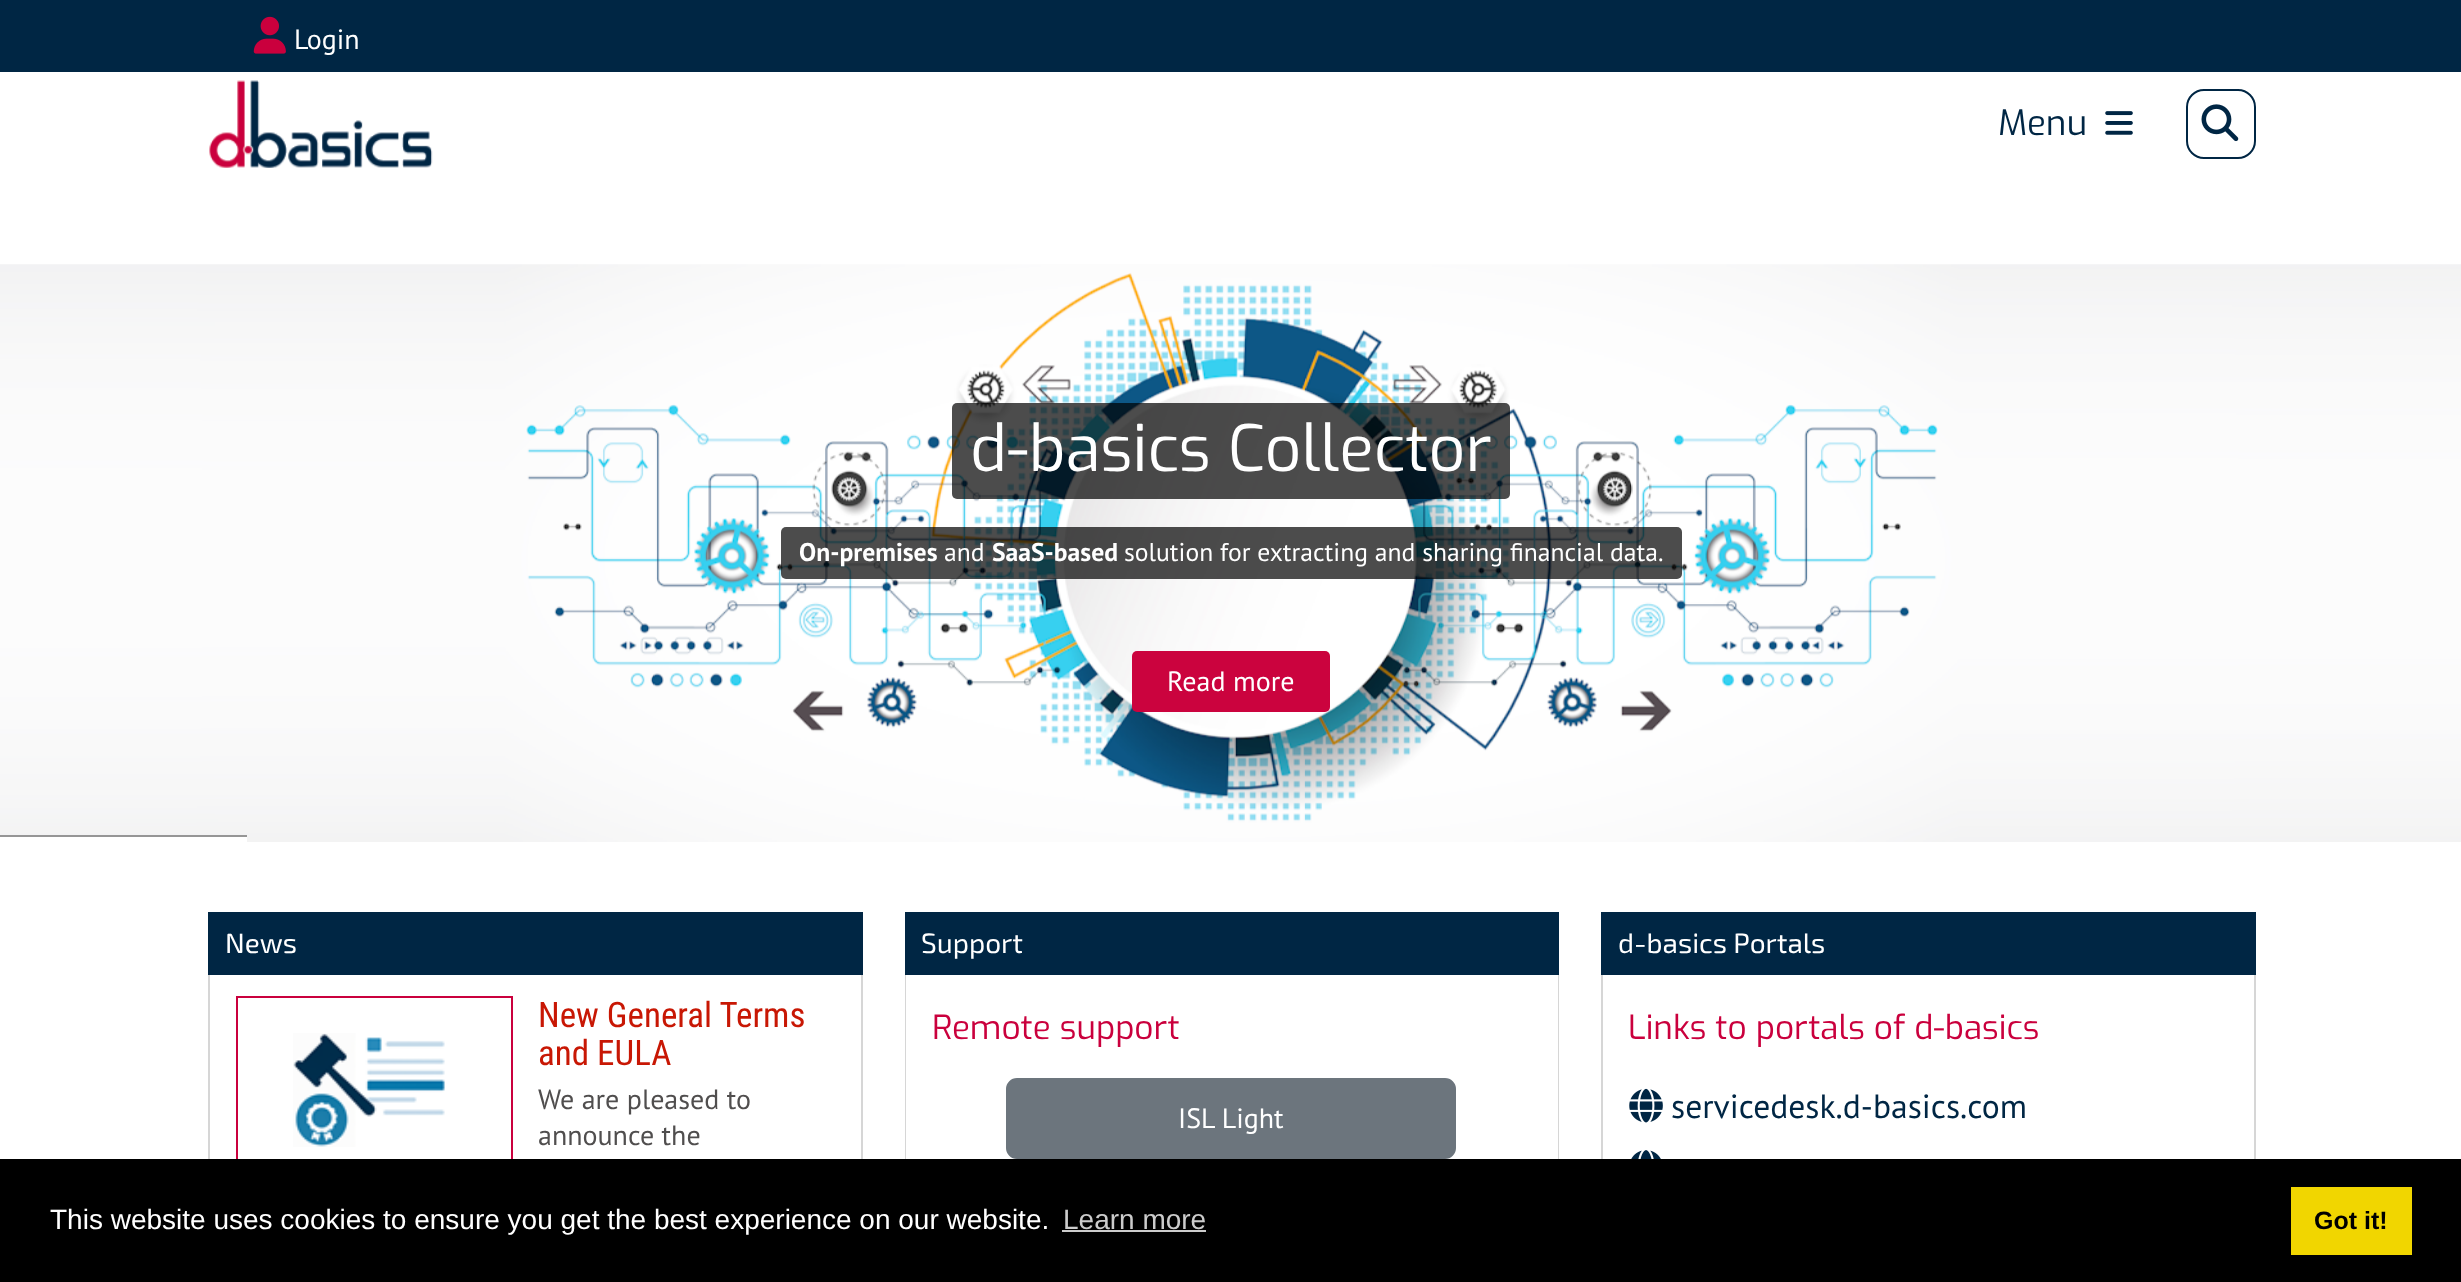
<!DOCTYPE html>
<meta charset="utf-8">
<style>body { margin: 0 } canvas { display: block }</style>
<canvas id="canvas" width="2461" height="1282"></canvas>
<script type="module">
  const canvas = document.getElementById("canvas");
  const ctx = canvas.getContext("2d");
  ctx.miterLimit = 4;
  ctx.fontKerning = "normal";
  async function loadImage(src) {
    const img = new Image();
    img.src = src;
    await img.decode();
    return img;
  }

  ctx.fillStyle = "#ffffff";
  ctx.fillRect(0, 0, 2461, 1282);
  ctx.fillStyle = "#002644";
  ctx.fillRect(0, 0, 2461, 72);
  ctx.drawImage(await loadImage("img1.png"), 253, 16, 33, 38);
  ctx.font = "28px PT Sans";
  ctx.fillStyle = "#ffffff";
  ctx.fillText("Login", 294, 49);
  ctx.drawImage(await loadImage("img2.png"), 209, 80, 224, 88);
  ctx.font = "35px Exo";
  ctx.fillStyle = "#002644";
  ctx.fillText("Menu", 1998, 135);
  ctx.drawImage(await loadImage("img3.png"), 2105, 111, 28, 24);
  ctx.beginPath();
  ctx.roundRect(2187, 90, 68, 68, 17);
  ctx.strokeStyle = "#002644";
  ctx.lineWidth = 2;
  ctx.stroke();
  ctx.drawImage(await loadImage("img4.png"), 2201, 104, 38, 38);
  ctx.drawImage(await loadImage("img5.png"), 0, 264, 2461, 578);
  ctx.fillStyle = "rgba(0, 0, 0, 0.7)";
  ctx.beginPath();
  ctx.roundRect(952, 403, 558, 96, 5);
  ctx.fill();
  ctx.font = "64px Exo";
  ctx.fillStyle = "#ffffff";
  ctx.fillText("d-basics Collector", 970, 471);
  ctx.fillStyle = "rgba(0, 0, 0, 0.7)";
  ctx.beginPath();
  ctx.roundRect(781, 527, 901, 52, 5);
  ctx.fill();
  ctx.font = "bold 25.65px PT Sans";
  ctx.fillStyle = "#ffffff";
  ctx.fillText("On-premises", 799, 561);
  ctx.font = "25.65px PT Sans";
  ctx.fillText("and", 944, 561);
  ctx.font = "bold 25.65px PT Sans";
  ctx.fillText("SaaS-based", 992, 561);
  ctx.font = "25.65px PT Sans";
  ctx.fillText("solution for extracting and sharing financial data.", 1124, 561);
  ctx.fillStyle = "#cb033e";
  ctx.beginPath();
  ctx.roundRect(1132, 651, 198, 61, 5);
  ctx.fill();
  ctx.font = "28px PT Sans";
  ctx.fillStyle = "#ffffff";
  ctx.fillText("Read more", 1167, 691);
  ctx.fillRect(0, 837, 247, 5);
  ctx.fillStyle = "#969696";
  ctx.fillRect(0, 835, 247, 2);
  ctx.fillStyle = "#002644";
  ctx.fillRect(208, 912, 655, 63);
  ctx.font = "28px 'Exo 2'";
  ctx.fillStyle = "#ffffff";
  ctx.fillText("News", 225, 953);
  ctx.fillStyle = "#d6d6d6";
  ctx.beginPath();
  ctx.moveTo(208, 975);
  ctx.lineTo(863, 975);
  ctx.lineTo(863, 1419);
  ctx.bezierCurveTo(863, 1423, 860, 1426, 856, 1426);
  ctx.lineTo(215, 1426);
  ctx.bezierCurveTo(211, 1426, 208, 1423, 208, 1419);
  ctx.closePath();
  ctx.moveTo(210, 975);
  ctx.lineTo(861, 975);
  ctx.lineTo(861, 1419);
  ctx.bezierCurveTo(861, 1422, 859, 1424, 856, 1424);
  ctx.lineTo(215, 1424);
  ctx.bezierCurveTo(212, 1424, 210, 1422, 210, 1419);
  ctx.closePath();
  ctx.fill("evenodd");
  ctx.strokeStyle = "#ca003d";
  ctx.strokeRect(237, 997, 275, 187);
  ctx.drawImage(await loadImage("img6.png"), 293, 1033, 152, 114);
  ctx.font = "35px Roboto Condensed";
  ctx.fillStyle = "#c81704";
  ctx.fillText("New General Terms", 538, 1027);
  ctx.fillText("and EULA", 538, 1065);
  ctx.font = "28px PT Sans";
  ctx.fillStyle = "#504e4e";
  ctx.fillText("We are pleased to", 538, 1109);
  ctx.fillText("announce the", 538, 1145);
  ctx.fillStyle = "#002644";
  ctx.fillRect(905, 912, 654, 63);
  ctx.font = "28px 'Exo 2'";
  ctx.fillStyle = "#ffffff";
  ctx.fillText("Support", 921, 953);
  ctx.fillStyle = "#d6d6d6";
  ctx.beginPath();
  ctx.moveTo(905, 975);
  ctx.lineTo(1559, 975);
  ctx.lineTo(1559, 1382);
  ctx.bezierCurveTo(1559, 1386, 1556, 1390, 1552, 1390);
  ctx.lineTo(912, 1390);
  ctx.bezierCurveTo(908, 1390, 905, 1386, 905, 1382);
  ctx.closePath();
  ctx.moveTo(906, 975);
  ctx.lineTo(1558, 975);
  ctx.lineTo(1558, 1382);
  ctx.bezierCurveTo(1558, 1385, 1555, 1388, 1552, 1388);
  ctx.lineTo(912, 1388);
  ctx.bezierCurveTo(909, 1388, 906, 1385, 906, 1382);
  ctx.closePath();
  ctx.fill("evenodd");
  ctx.font = "33.25px Exo";
  ctx.fillStyle = "#ca003d";
  ctx.fillText("Remote support", 932, 1039);
  ctx.fillStyle = "#6c757d";
  ctx.beginPath();
  ctx.roundRect(1007, 1079, 448, 79, 10);
  ctx.fill();
  ctx.strokeStyle = "#6c757d";
  ctx.stroke();
  ctx.font = "28px PT Sans";
  ctx.fillStyle = "#ffffff";
  ctx.fillText("ISL Light", 1178, 1128);
  ctx.fillStyle = "#002644";
  ctx.fillRect(1601, 912, 655, 63);
  ctx.font = "28px 'Exo 2'";
  ctx.fillStyle = "#ffffff";
  ctx.fillText("d-basics Portals", 1618, 953);
  ctx.fillStyle = "#d6d6d6";
  ctx.beginPath();
  ctx.moveTo(1601, 975);
  ctx.lineTo(2256, 975);
  ctx.lineTo(2256, 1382);
  ctx.bezierCurveTo(2256, 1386, 2253, 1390, 2249, 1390);
  ctx.lineTo(1608, 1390);
  ctx.bezierCurveTo(1604, 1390, 1601, 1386, 1601, 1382);
  ctx.closePath();
  ctx.moveTo(1603, 975);
  ctx.lineTo(2254, 975);
  ctx.lineTo(2254, 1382);
  ctx.bezierCurveTo(2254, 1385, 2252, 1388, 2249, 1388);
  ctx.lineTo(1608, 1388);
  ctx.bezierCurveTo(1605, 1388, 1603, 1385, 1603, 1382);
  ctx.closePath();
  ctx.fill("evenodd");
  ctx.font = "33.25px Exo";
  ctx.fillStyle = "#ca003d";
  ctx.fillText("Links to portals of d-basics", 1628, 1039);
  ctx.drawImage(await loadImage("img7.png"), 1629, 1088, 34, 35);
  ctx.font = "33.6px PT Sans";
  ctx.fillStyle = "#002644";
  ctx.fillText("servicedesk.d-basics.com", 1671, 1118);
  ctx.drawImage(await loadImage("img8.png"), 1631, 1150, 30, 9);
  ctx.fillStyle = "#000000";
  ctx.fillRect(0, 1159, 2461, 123);
  ctx.font = "28px Liberation Sans";
  ctx.fillStyle = "#ffffff";
  ctx.fillText("This website uses cookies to ensure you get the best experience on our website.", 50, 1229);
  ctx.fillStyle = "#cccccc";
  ctx.fillText("Learn more", 1063, 1229);
  ctx.fillRect(1062, 1230, 144, 2);
  ctx.fillStyle = "#f1d600";
  ctx.fillRect(2291, 1187, 121, 68);
  ctx.font = "bold 25px Liberation Sans";
  ctx.fillStyle = "#000000";
  ctx.fillText("Got it!", 2314, 1229);
</script>
